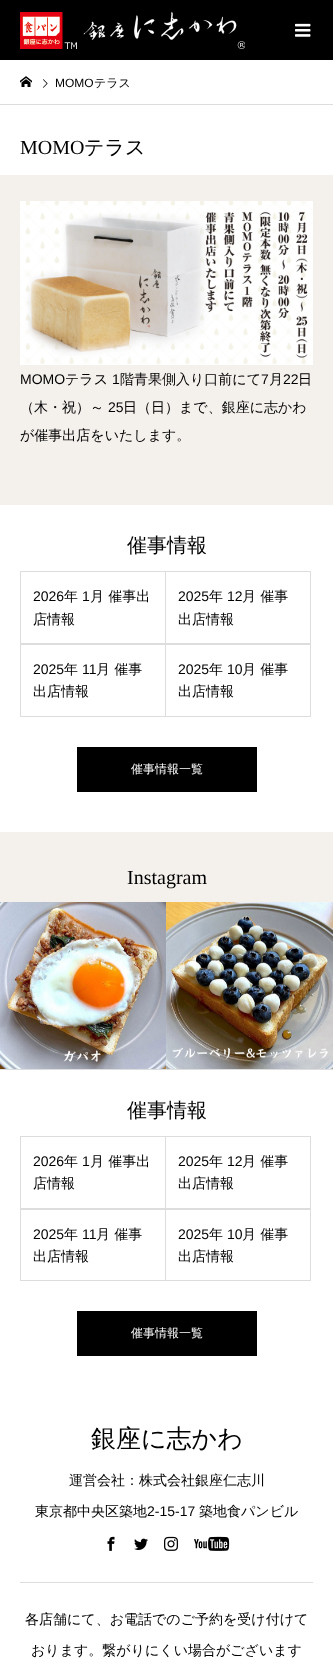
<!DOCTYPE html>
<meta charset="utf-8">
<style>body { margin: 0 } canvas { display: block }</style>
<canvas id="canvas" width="333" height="1660"></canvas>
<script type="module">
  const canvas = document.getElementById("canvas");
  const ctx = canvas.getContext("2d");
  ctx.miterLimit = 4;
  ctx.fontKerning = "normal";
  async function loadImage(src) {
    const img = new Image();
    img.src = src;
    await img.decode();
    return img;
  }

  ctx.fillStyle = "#ffffff";
  ctx.fillRect(0, 0, 333, 1660);
  ctx.fillStyle = "#000000";
  ctx.fillRect(0, 0, 333, 60);
  ctx.drawImage(await loadImage("img1.png"), 20, 12, 225, 37);
  ctx.drawImage(await loadImage("img2.png"), 295, 23, 16, 14);
  ctx.fillStyle = "#dddddd";
  ctx.fillRect(0, 104, 333, 1);
  ctx.drawImage(await loadImage("img3.png"), 20, 76, 12, 11);
  ctx.drawImage(await loadImage("img4.png"), 43, 79, 5, 9);
  ctx.font = "12px Liberation Sans";
  ctx.fillStyle = "#000000";
  ctx.fillText("MOMO", 55, 87);
  ctx.font = "500 12px WenQuanYi Zen Hei";
  ctx.fillText("テラス", 94, 87);
  ctx.font = "20px Liberation Serif";
  ctx.fillText("MOMO", 20, 154);
  ctx.font = "500 20px WenQuanYi Zen Hei";
  ctx.fillText("テラス", 84, 154);
  ctx.fillStyle = "#f4f1ed";
  ctx.fillRect(0, 175, 333, 330);
  ctx.drawImage(await loadImage("img5.png"), 20, 201, 293, 164);
  ctx.font = "14px Liberation Sans";
  ctx.fillStyle = "#000000";
  ctx.fillText("MOMO", 20, 384);
  ctx.font = "500 14px WenQuanYi Zen Hei";
  ctx.fillText("テラス", 65, 384);
  ctx.font = "14px Liberation Sans";
  ctx.fillText("1", 112, 384);
  ctx.font = "500 14px WenQuanYi Zen Hei";
  ctx.fillText("階青果側入り口前にて", 120, 384);
  ctx.font = "14px Liberation Sans";
  ctx.fillText("7", 261, 384);
  ctx.font = "500 14px WenQuanYi Zen Hei";
  ctx.fillText("月", 269, 384);
  ctx.font = "14px Liberation Sans";
  ctx.fillText("22", 283, 384);
  ctx.font = "500 14px WenQuanYi Zen Hei";
  ctx.fillText("日", 298, 384);
  ctx.fillText("（木・祝）～", 20, 412);
  ctx.font = "14px Liberation Sans";
  ctx.fillText("25", 108, 412);
  ctx.font = "500 14px WenQuanYi Zen Hei";
  ctx.fillText("日（日）まで、銀座に志かわ", 123, 412);
  ctx.fillText("が催事出店をいたします。", 20, 440);
  ctx.font = "500 20px WenQuanYi Zen Hei";
  ctx.fillText("催事情報", 127, 552);
  ctx.fillStyle = "#dddddd";
  ctx.fillRect(165, 571, 1, 146);
  ctx.fillRect(20, 643, 146, 1);
  ctx.fillRect(20, 571, 1, 73);
  ctx.fillRect(310, 571, 1, 146);
  ctx.fillRect(20, 571, 291, 1);
  ctx.font = "14px Liberation Sans";
  ctx.fillStyle = "#000000";
  ctx.fillText("2026", 33, 601);
  ctx.font = "500 14px WenQuanYi Zen Hei";
  ctx.fillText("年", 64, 601);
  ctx.font = "14px Liberation Sans";
  ctx.fillText("1", 82, 601);
  ctx.font = "500 14px WenQuanYi Zen Hei";
  ctx.fillText("月 催事出", 90, 601);
  ctx.fillText("店情報", 33, 624);
  ctx.fillStyle = "#dddddd";
  ctx.fillRect(165, 643, 146, 1);
  ctx.font = "14px Liberation Sans";
  ctx.fillStyle = "#000000";
  ctx.fillText("2025", 178, 601);
  ctx.font = "500 14px WenQuanYi Zen Hei";
  ctx.fillText("年", 209, 601);
  ctx.font = "14px Liberation Sans";
  ctx.fillText("12", 227, 601);
  ctx.font = "500 14px WenQuanYi Zen Hei";
  ctx.fillText("月 催事", 242, 601);
  ctx.fillText("出店情報", 178, 624);
  ctx.fillStyle = "#dddddd";
  ctx.fillRect(20, 716, 291, 1);
  ctx.fillRect(20, 644, 1, 73);
  ctx.fillRect(20, 644, 291, 1);
  ctx.font = "14px Liberation Sans";
  ctx.fillStyle = "#000000";
  ctx.fillText("2025", 33, 674);
  ctx.font = "500 14px WenQuanYi Zen Hei";
  ctx.fillText("年", 64, 674);
  ctx.font = "14px Liberation Sans";
  ctx.fillText("11", 82, 674);
  ctx.font = "500 14px WenQuanYi Zen Hei";
  ctx.fillText("月 催事", 96, 674);
  ctx.fillText("出店情報", 33, 696);
  ctx.font = "14px Liberation Sans";
  ctx.fillText("2025", 178, 674);
  ctx.font = "500 14px WenQuanYi Zen Hei";
  ctx.fillText("年", 209, 674);
  ctx.font = "14px Liberation Sans";
  ctx.fillText("10", 227, 674);
  ctx.font = "500 14px WenQuanYi Zen Hei";
  ctx.fillText("月 催事", 242, 674);
  ctx.fillText("出店情報", 178, 696);
  ctx.fillRect(77, 747, 180, 45);
  ctx.font = "500 12px WenQuanYi Zen Hei";
  ctx.fillStyle = "#ffffff";
  ctx.fillText("催事情報一覧", 131, 773);
  ctx.fillStyle = "#f4f1ed";
  ctx.fillRect(0, 832, 333, 70);
  ctx.font = "20px Liberation Serif";
  ctx.fillStyle = "#000000";
  ctx.fillText("Instagram", 127, 884);
  ctx.fillStyle = "#dddddd";
  ctx.fillRect(0, 1069, 333, 1);
  ctx.drawImage(await loadImage("img6.png"), 0, 902, 166, 167);
  ctx.drawImage(await loadImage("img7.png"), 166, 902, 167, 167);
  ctx.font = "500 20px WenQuanYi Zen Hei";
  ctx.fillStyle = "#000000";
  ctx.fillText("催事情報", 127, 1117);
  ctx.fillStyle = "#dddddd";
  ctx.fillRect(165, 1136, 1, 145);
  ctx.fillRect(20, 1208, 146, 1);
  ctx.fillRect(20, 1136, 1, 73);
  ctx.fillRect(310, 1136, 1, 145);
  ctx.fillRect(20, 1136, 291, 1);
  ctx.font = "14px Liberation Sans";
  ctx.fillStyle = "#000000";
  ctx.fillText("2026", 33, 1166);
  ctx.font = "500 14px WenQuanYi Zen Hei";
  ctx.fillText("年", 64, 1166);
  ctx.font = "14px Liberation Sans";
  ctx.fillText("1", 82, 1166);
  ctx.font = "500 14px WenQuanYi Zen Hei";
  ctx.fillText("月 催事出", 90, 1166);
  ctx.fillText("店情報", 33, 1188);
  ctx.fillStyle = "#dddddd";
  ctx.fillRect(165, 1208, 146, 1);
  ctx.font = "14px Liberation Sans";
  ctx.fillStyle = "#000000";
  ctx.fillText("2025", 178, 1166);
  ctx.font = "500 14px WenQuanYi Zen Hei";
  ctx.fillText("年", 209, 1166);
  ctx.font = "14px Liberation Sans";
  ctx.fillText("12", 227, 1166);
  ctx.font = "500 14px WenQuanYi Zen Hei";
  ctx.fillText("月 催事", 242, 1166);
  ctx.fillText("出店情報", 178, 1188);
  ctx.fillStyle = "#dddddd";
  ctx.fillRect(20, 1280, 291, 1);
  ctx.fillRect(20, 1209, 1, 72);
  ctx.fillRect(20, 1209, 291, 1);
  ctx.font = "14px Liberation Sans";
  ctx.fillStyle = "#000000";
  ctx.fillText("2025", 33, 1239);
  ctx.font = "500 14px WenQuanYi Zen Hei";
  ctx.fillText("年", 64, 1239);
  ctx.font = "14px Liberation Sans";
  ctx.fillText("11", 82, 1239);
  ctx.font = "500 14px WenQuanYi Zen Hei";
  ctx.fillText("月 催事", 96, 1239);
  ctx.fillText("出店情報", 33, 1261);
  ctx.font = "14px Liberation Sans";
  ctx.fillText("2025", 178, 1239);
  ctx.font = "500 14px WenQuanYi Zen Hei";
  ctx.fillText("年", 209, 1239);
  ctx.font = "14px Liberation Sans";
  ctx.fillText("10", 227, 1239);
  ctx.font = "500 14px WenQuanYi Zen Hei";
  ctx.fillText("月 催事", 242, 1239);
  ctx.fillText("出店情報", 178, 1261);
  ctx.fillRect(77, 1311, 180, 45);
  ctx.font = "500 12px WenQuanYi Zen Hei";
  ctx.fillStyle = "#ffffff";
  ctx.fillText("催事情報一覧", 131, 1337);
  ctx.font = "500 25px WenQuanYi Zen Hei";
  ctx.fillStyle = "#000000";
  ctx.fillText("銀座に志かわ", 91, 1447);
  ctx.font = "500 14px WenQuanYi Zen Hei";
  ctx.fillText("運営会社：株式会社銀座仁志川", 69, 1485);
  ctx.fillText("東京都中央区築地", 35, 1516);
  ctx.font = "14px Liberation Sans";
  ctx.fillText("2-15-17", 147, 1516);
  ctx.font = "500 14px WenQuanYi Zen Hei";
  ctx.fillText("築地食パンビル", 199, 1516);
  ctx.drawImage(await loadImage("img8.png"), 107, 1536, 8, 15);
  ctx.drawImage(await loadImage("img9.png"), 134, 1538, 14, 12);
  ctx.drawImage(await loadImage("img10.png"), 164, 1536, 14, 15);
  ctx.drawImage(await loadImage("img11.png"), 194, 1536, 36, 15);
  ctx.fillStyle = "#dddddd";
  ctx.fillRect(20, 1582, 293, 1);
  ctx.fillStyle = "#000000";
  ctx.fillText("各店舗にて、お電話でのご予約を受け付けて", 25, 1624);
  ctx.fillText("おります。繋がりにくい場合がございます", 31, 1655);
</script>
